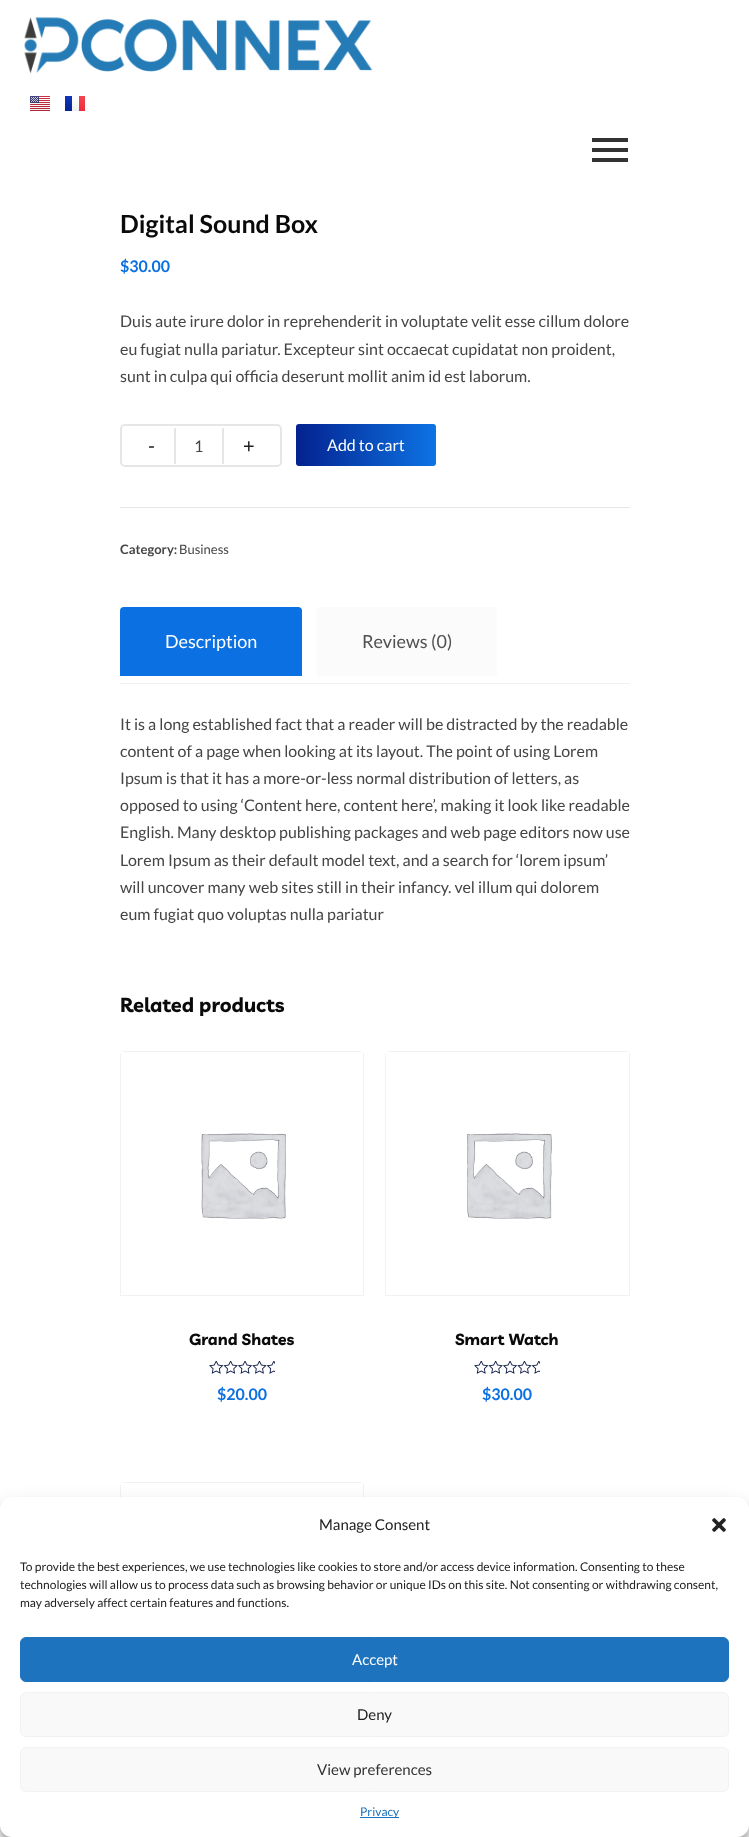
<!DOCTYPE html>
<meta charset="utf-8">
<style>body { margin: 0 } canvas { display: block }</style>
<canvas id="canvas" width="749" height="1837"></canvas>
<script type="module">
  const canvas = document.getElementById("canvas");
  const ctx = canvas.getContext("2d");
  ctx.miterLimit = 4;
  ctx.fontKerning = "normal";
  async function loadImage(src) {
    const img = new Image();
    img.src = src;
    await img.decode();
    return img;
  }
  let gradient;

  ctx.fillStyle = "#ffffff";
  ctx.fillRect(0, 0, 749, 1837);
  ctx.drawImage(await loadImage("img1.png"), 24, 17, 349, 57);
  ctx.drawImage(await loadImage("img2.png"), 30, 96, 20, 15);
  gradient = ctx.createLinearGradient(81, 96, 81, 111);
  gradient.addColorStop(0, "#f44653");
  gradient.addColorStop(1, "#ee2a39");
  ctx.fillStyle = gradient;
  ctx.fillRect(79, 96, 6, 15);
  gradient = ctx.createLinearGradient(69, 96, 69, 111);
  gradient.addColorStop(0, "#1035bb");
  gradient.addColorStop(1, "#042396");
  ctx.fillStyle = gradient;
  ctx.fillRect(65, 96, 7, 15);
  gradient = ctx.createLinearGradient(76, 96, 76, 111);
  gradient.addColorStop(0, "#ffffff");
  gradient.addColorStop(1, "#f0f0f0");
  ctx.fillStyle = gradient;
  ctx.fillRect(72, 96, 7, 15);
  ctx.fillStyle = "#333333";
  ctx.fillRect(592, 138, 36, 4);
  ctx.fillRect(592, 148, 36, 4);
  ctx.fillRect(592, 158, 36, 4);
  ctx.font = "bold 25px Lato";
  ctx.fillStyle = "#0a0a0a";
  ctx.fillText("Digital Sound Box", 120, 233);
  ctx.font = "bold 16px Lato";
  ctx.fillStyle = "#0b70e1";
  ctx.fillText("$30.00", 120, 272);
  ctx.font = "16px Lato";
  ctx.fillStyle = "#454545";
  ctx.fillText("Duis aute irure dolor in reprehenderit in voluptate velit esse cillum dolore", 120, 327);
  ctx.fillText("eu fugiat nulla pariatur. Excepteur sint occaecat cupidatat non proident,", 120, 355);
  ctx.fillText("sunt in culpa qui officia deserunt mollit anim id est laborum.", 120, 382);
  ctx.fillStyle = "#e6e6e6";
  ctx.fillRect(120, 507, 510, 1);
  ctx.beginPath();
  ctx.roundRect(121, 425, 160, 41, 4);
  ctx.strokeStyle = "#e6e6e6";
  ctx.lineWidth = 2;
  ctx.stroke();
  ctx.font = "20px Lato";
  ctx.fillStyle = "#212121";
  ctx.fillText("-", 148, 453);
  ctx.fillStyle = "#e6e6e6";
  ctx.fillRect(222, 428, 2, 36);
  ctx.fillRect(174, 428, 2, 36);
  ctx.font = "16px Lato";
  ctx.fillStyle = "#454545";
  ctx.fillText("1", 194, 452);
  ctx.font = "20px Lato";
  ctx.fillStyle = "#212121";
  ctx.fillText("+", 243, 453);
  gradient = ctx.createLinearGradient(296, 445, 436, 445);
  gradient.addColorStop(0, "#03228f");
  gradient.addColorStop(1, "#0e73e4");
  ctx.fillStyle = gradient;
  ctx.beginPath();
  ctx.roundRect(296, 424, 140, 42, 3);
  ctx.fill();
  ctx.font = "16px Lato";
  ctx.fillStyle = "#ffffff";
  ctx.fillText("Add to cart", 327, 451);
  ctx.font = "bold 13px Lato";
  ctx.fillStyle = "#454545";
  ctx.fillText("Category:", 120, 554);
  ctx.font = "13px Lato";
  ctx.fillText("Business", 179, 554);
  ctx.fillStyle = "#0b70e1";
  ctx.beginPath();
  ctx.roundRect(120, 607, 182, 69, [4, 4, 0, 0]);
  ctx.fill();
  ctx.font = "18px Lato";
  ctx.fillStyle = "#ffffff";
  ctx.fillText("Description", 165, 648);
  ctx.fillStyle = "#fbfbfb";
  ctx.beginPath();
  ctx.roundRect(317, 607, 180, 69, [4, 4, 0, 0]);
  ctx.fill();
  ctx.fillStyle = "#515151";
  ctx.fillText("Reviews (0)", 362, 648);
  ctx.fillStyle = "#f0f0f0";
  ctx.fillRect(120, 683, 510, 1);
  ctx.font = "16px Lato";
  ctx.fillStyle = "#454545";
  ctx.fillText("It is a long established fact that a reader will be distracted by the readable", 120, 730);
  ctx.fillText("content of a page when looking at its layout. The point of using Lorem", 120, 757);
  ctx.fillText("Ipsum is that it has a more-or-less normal distribution of letters, as", 120, 784);
  ctx.fillText("opposed to using ‘Content here, content here’, making it look like readable", 120, 811);
  ctx.fillText("English. Many desktop publishing packages and web page editors now use", 120, 838);
  ctx.fillText("Lorem Ipsum as their default model text, and a search for ‘lorem ipsum’", 120, 866);
  ctx.fillText("will uncover many web sites still in their infancy. vel illum qui dolorem", 120, 893);
  ctx.fillText("eum fugiat quo voluptas nulla pariatur", 120, 920);
  ctx.font = "bold 20px Livvic";
  ctx.fillStyle = "#0a0a0a";
  ctx.fillText("Related products", 120, 1012);
  ctx.fillStyle = "#f2f2f2";
  ctx.beginPath();
  ctx.moveTo(120, 1055);
  ctx.lineTo(120, 1296);
  ctx.lineTo(364, 1296);
  ctx.lineTo(364, 1055);
  ctx.bezierCurveTo(364, 1054, 364, 1053, 363, 1052);
  ctx.lineTo(363, 1295);
  ctx.lineTo(121, 1295);
  ctx.lineTo(121, 1052);
  ctx.closePath();
  ctx.moveTo(124, 1051);
  ctx.lineTo(121, 1052);
  ctx.lineTo(363, 1052);
  ctx.lineTo(360, 1051);
  ctx.closePath();
  ctx.fill("evenodd");
  ctx.drawImage(await loadImage("img3.png"), 201, 1133, 85, 86);
  ctx.font = "bold 16px Livvic";
  ctx.fillStyle = "#0a0a0a";
  ctx.fillText("Grand Shates", 189, 1345);
  ctx.drawImage(await loadImage("img4.png"), 209, 1361, 66, 13);
  ctx.font = "bold 16px Lato";
  ctx.fillStyle = "#0b70e1";
  ctx.fillText("$20.00", 217, 1400);
  ctx.fillStyle = "#f2f2f2";
  ctx.beginPath();
  ctx.moveTo(385, 1055);
  ctx.lineTo(385, 1296);
  ctx.lineTo(630, 1296);
  ctx.lineTo(630, 1055);
  ctx.bezierCurveTo(630, 1054, 630, 1053, 629, 1052);
  ctx.lineTo(629, 1295);
  ctx.lineTo(386, 1295);
  ctx.lineTo(386, 1052);
  ctx.closePath();
  ctx.moveTo(389, 1051);
  ctx.lineTo(386, 1052);
  ctx.lineTo(629, 1052);
  ctx.lineTo(626, 1051);
  ctx.closePath();
  ctx.fill("evenodd");
  ctx.drawImage(await loadImage("img5.png"), 467, 1133, 85, 86);
  ctx.font = "bold 16px Livvic";
  ctx.fillStyle = "#0a0a0a";
  ctx.fillText("Smart Watch", 455, 1345);
  ctx.drawImage(await loadImage("img4.png"), 474, 1361, 66, 13);
  ctx.font = "bold 16px Lato";
  ctx.fillStyle = "#0b70e1";
  ctx.fillText("$30.00", 482, 1400);
  ctx.fillStyle = "#f2f2f2";
  ctx.beginPath();
  ctx.moveTo(120, 1486);
  ctx.lineTo(120, 1727);
  ctx.lineTo(364, 1727);
  ctx.lineTo(364, 1486);
  ctx.bezierCurveTo(364, 1485, 364, 1484, 363, 1483);
  ctx.lineTo(363, 1726);
  ctx.lineTo(121, 1726);
  ctx.lineTo(121, 1483);
  ctx.closePath();
  ctx.moveTo(124, 1482);
  ctx.lineTo(121, 1483);
  ctx.lineTo(363, 1483);
  ctx.lineTo(360, 1482);
  ctx.closePath();
  ctx.fill("evenodd");
  ctx.fillStyle = "rgba(0, 0, 0, 0.23)";
  ctx.filter = "blur(3px)";
  ctx.beginPath();
  ctx.roundRect(0, 1503, 749, 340, 12);
  ctx.fill();
  ctx.filter = "none";
  ctx.fillStyle = "rgba(0, 0, 0, 0.19)";
  ctx.filter = "blur(10px)";
  ctx.beginPath();
  ctx.roundRect(0, 1507, 749, 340, 12);
  ctx.fill();
  ctx.filter = "none";
  ctx.fillStyle = "#ffffff";
  ctx.beginPath();
  ctx.roundRect(0, 1497, 749, 340, 12);
  ctx.fill();
  ctx.font = "15px Lato";
  ctx.fillStyle = "#212121";
  ctx.fillText("Manage Consent", 319, 1530);
  ctx.drawImage(await loadImage("img6.png"), 712, 1518, 14, 14);
  ctx.font = "12px Lato";
  ctx.fillText("To provide the best experiences, we use technologies like cookies to store and/or access device information. Consenting to these", 20, 1571);
  ctx.fillText("technologies will allow us to process data such as browsing behavior or unique IDs on this site. Not consenting or withdrawing consent,", 20, 1589);
  ctx.fillText("may adversely affect certain features and functions.", 20, 1607);
  ctx.fillStyle = "#1e73be";
  ctx.beginPath();
  ctx.roundRect(20.5, 1637.5, 708, 44, 5.5);
  ctx.fill();
  ctx.strokeStyle = "#1e73be";
  ctx.lineWidth = 1;
  ctx.stroke();
  ctx.font = "15px Lato";
  ctx.fillStyle = "#ffffff";
  ctx.fillText("Accept", 352, 1665);
  ctx.fillStyle = "#f9f9f9";
  ctx.beginPath();
  ctx.roundRect(20.5, 1692.5, 708, 44, 5.5);
  ctx.fill();
  ctx.strokeStyle = "#f2f2f2";
  ctx.stroke();
  ctx.fillStyle = "#212121";
  ctx.fillText("Deny", 357, 1720);
  ctx.fillStyle = "#f9f9f9";
  ctx.beginPath();
  ctx.roundRect(20.5, 1747.5, 708, 44, 5.5);
  ctx.fill();
  ctx.stroke();
  ctx.fillStyle = "#333333";
  ctx.fillText("View preferences", 317, 1775);
  ctx.fillStyle = "#1e73be";
  ctx.fillRect(360, 1817, 39, 1);
  ctx.font = "12px Lato";
  ctx.fillText("Privacy", 360, 1816);
</script>
